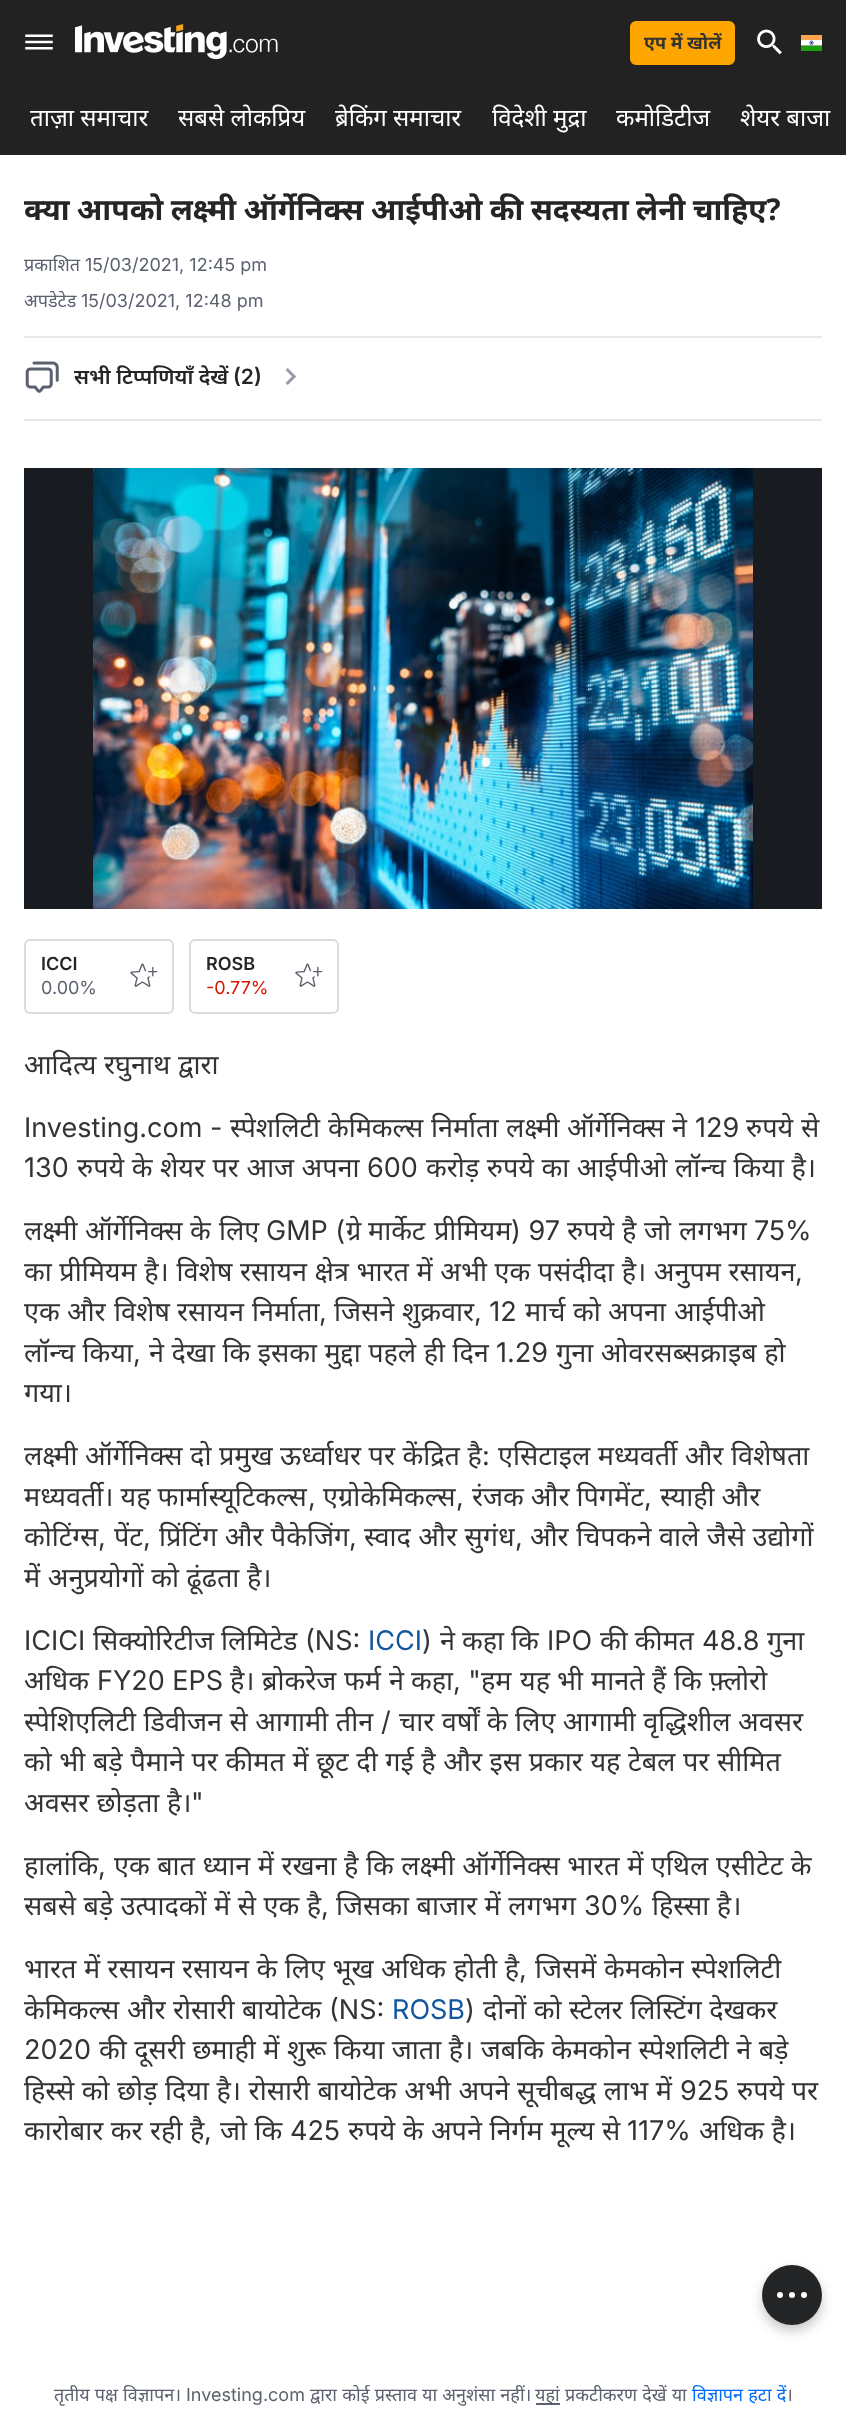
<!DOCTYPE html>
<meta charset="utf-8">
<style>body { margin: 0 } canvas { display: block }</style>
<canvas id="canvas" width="846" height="2432"></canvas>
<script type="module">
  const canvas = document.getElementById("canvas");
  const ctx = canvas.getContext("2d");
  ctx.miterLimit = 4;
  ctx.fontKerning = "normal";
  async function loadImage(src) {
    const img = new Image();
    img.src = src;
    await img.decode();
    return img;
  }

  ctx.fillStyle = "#ffffff";
  ctx.fillRect(0, 0, 846, 2432);
  ctx.fillStyle = "#222222";
  ctx.fillRect(0, 0, 846, 155);
  ctx.drawImage(await loadImage("img1.png"), 25, 34, 28, 16);
  ctx.drawImage(await loadImage("img2.png"), 75, 24, 203, 36);
  ctx.fillStyle = "#ffa500";
  ctx.beginPath();
  ctx.roundRect(631, 22, 103, 42, 5);
  ctx.fill();
  ctx.strokeStyle = "#ffa500";
  ctx.lineWidth = 2;
  ctx.stroke();
  ctx.font = "bold 18px Noto Sans";
  ctx.fillStyle = "#333333";
  ctx.fillText("एप में खोलें", 644, 49);
  ctx.drawImage(await loadImage("img3.png"), 757, 29, 25, 26);
  ctx.drawImage(await loadImage("img4.png"), 801, 35, 21, 16);
  ctx.font = "24px Noto Sans";
  ctx.fillStyle = "#ffffff";
  ctx.fillText("ताज़ा समाचार", 30, 126);
  ctx.fillText("सबसे लोकप्रिय", 178, 126);
  ctx.fillText("ब्रेकिंग समाचार", 335, 126);
  ctx.fillText("विदेशी मुद्रा", 492, 126);
  ctx.fillText("कमोडिटीज", 616, 126);
  ctx.fillText("शेयर बाजा", 740, 126);
  ctx.wordSpacing = "-0.5px";
  ctx.font = "bold 30px Noto Sans";
  ctx.fillStyle = "#232526";
  ctx.fillText("क्या आपको लक्ष्मी ऑर्गेनिक्स आईपीओ की सदस्यता लेनी चाहिए?", 24, 220);
  ctx.wordSpacing = "0px";
  ctx.font = "18px Noto Sans";
  ctx.fillStyle = "#5b616e";
  ctx.fillText("प्रकाशित", 24, 271);
  ctx.font = "18px Inter";
  ctx.fillText("15/03/2021, 12:45 pm", 85, 271);
  ctx.font = "18px Noto Sans";
  ctx.fillText("अपडेटेड", 24, 307);
  ctx.font = "18px Inter";
  ctx.fillText("15/03/2021, 12:48 pm", 81, 307);
  ctx.fillStyle = "#e6e9eb";
  ctx.fillRect(24, 336, 798, 2);
  ctx.drawImage(await loadImage("img5.png"), 25, 361, 34, 32);
  ctx.font = "600 21px Noto Sans";
  ctx.fillStyle = "#232526";
  ctx.fillText("सभी टिप्पणियाँ देखें", 74, 384);
  ctx.font = "600 21px Inter";
  ctx.fillText("(2)", 233, 384);
  ctx.drawImage(await loadImage("img6.png"), 285, 368, 12, 17);
  ctx.fillStyle = "#e6e9eb";
  ctx.fillRect(24, 419, 798, 2);
  ctx.fillStyle = "#181c21";
  ctx.fillRect(24, 468, 798, 441);
  ctx.drawImage(await loadImage("img7.png"), 93, 468, 660, 441);
  ctx.beginPath();
  ctx.roundRect(25, 940, 148, 73, 5);
  ctx.strokeStyle = "#d9dcdf";
  ctx.stroke();
  ctx.font = "600 18px Inter";
  ctx.fillStyle = "#232526";
  ctx.fillText("ICCI", 41, 970);
  ctx.font = "18px Inter";
  ctx.fillStyle = "#5b616e";
  ctx.fillText("0.00%", 41, 994);
  ctx.drawImage(await loadImage("img8.png"), 130, 963, 28, 24);
  ctx.beginPath();
  ctx.roundRect(190, 940, 148, 73, 5);
  ctx.stroke();
  ctx.font = "600 18px Inter";
  ctx.fillStyle = "#232526";
  ctx.fillText("ROSB", 206, 970);
  ctx.font = "18px Inter";
  ctx.fillStyle = "#d91400";
  ctx.fillText("-0.77%", 206, 994);
  ctx.drawImage(await loadImage("img8.png"), 295, 963, 28, 24);
  ctx.wordSpacing = "0.6px";
  ctx.font = "27px Noto Sans";
  ctx.fillStyle = "#333333";
  ctx.fillText("आदित्य रघुनाथ द्वारा", 24, 1074);
  ctx.wordSpacing = "0px";
  ctx.font = "27px Inter";
  ctx.fillText("Investing.com -", 24, 1137);
  ctx.font = "27px Noto Sans";
  ctx.fillText("स्पेशलिटी", 230, 1137);
  ctx.fillText("केमिकल्स", 328, 1137);
  ctx.fillText("निर्माता", 431, 1137);
  ctx.fillText("लक्ष्मी", 506, 1137);
  ctx.fillText("ऑर्गेनिक्स", 567, 1137);
  ctx.fillText("ने", 672, 1137);
  ctx.font = "27px Inter";
  ctx.fillText("129", 695, 1137);
  ctx.font = "27px Noto Sans";
  ctx.fillText("रुपये", 746, 1137);
  ctx.fillText("से", 801, 1137);
  ctx.font = "27px Inter";
  ctx.fillText("130", 24, 1177);
  ctx.wordSpacing = "0.5px";
  ctx.font = "27px Noto Sans";
  ctx.fillText("रुपये के शेयर पर आज अपना", 77, 1177);
  ctx.wordSpacing = "0px";
  ctx.font = "27px Inter";
  ctx.fillText("600", 367, 1177);
  ctx.wordSpacing = "0.5px";
  ctx.font = "27px Noto Sans";
  ctx.fillText("करोड़ रुपये का आईपीओ लॉन्च किया है।", 426, 1177);
  ctx.wordSpacing = "0px";
  ctx.fillText("लक्ष्मी", 24, 1240);
  ctx.fillText("ऑर्गेनिक्स", 85, 1240);
  ctx.fillText("के", 190, 1240);
  ctx.fillText("लिए", 219, 1240);
  ctx.font = "27px Inter";
  ctx.fillText("GMP (", 266, 1240);
  ctx.font = "27px Noto Sans";
  ctx.fillText("ग्रे", 346, 1240);
  ctx.fillText("मार्केट", 368, 1240);
  ctx.fillText("प्रीमियम", 434, 1240);
  ctx.font = "27px Inter";
  ctx.fillText(") 97", 511, 1240);
  ctx.font = "27px Noto Sans";
  ctx.fillText("रुपये", 567, 1240);
  ctx.fillText("है", 622, 1240);
  ctx.fillText("जो", 644, 1240);
  ctx.fillText("लगभग", 679, 1240);
  ctx.font = "27px Inter";
  ctx.fillText("75%", 754, 1240);
  ctx.wordSpacing = "0.6px";
  ctx.font = "27px Noto Sans";
  ctx.fillText("का प्रीमियम है। विशेष रसायन क्षेत्र भारत में अभी एक पसंदीदा है। अनुपम रसायन", 24, 1281);
  ctx.wordSpacing = "0px";
  ctx.font = "27px Inter";
  ctx.fillText(",", 795, 1281);
  ctx.font = "27px Noto Sans";
  ctx.fillText("एक", 24, 1321);
  ctx.fillText("और", 67, 1321);
  ctx.fillText("विशेष", 114, 1321);
  ctx.fillText("रसायन", 177, 1321);
  ctx.fillText("निर्माता", 252, 1321);
  ctx.font = "27px Inter";
  ctx.fillText(",", 319, 1321);
  ctx.font = "27px Noto Sans";
  ctx.fillText("जिसने", 334, 1321);
  ctx.fillText("शुक्रवार", 402, 1321);
  ctx.font = "27px Inter";
  ctx.fillText(", 12", 474, 1321);
  ctx.font = "27px Noto Sans";
  ctx.fillText("मार्च", 525, 1321);
  ctx.fillText("को", 573, 1321);
  ctx.fillText("अपना", 608, 1321);
  ctx.fillText("आईपीओ", 674, 1321);
  ctx.wordSpacing = "0.5px";
  ctx.fillText("लॉन्च किया", 24, 1362);
  ctx.wordSpacing = "0px";
  ctx.font = "27px Inter";
  ctx.fillText(",", 133, 1362);
  ctx.wordSpacing = "0.5px";
  ctx.font = "27px Noto Sans";
  ctx.fillText("ने देखा कि इसका मुद्दा पहले ही दिन", 149, 1362);
  ctx.wordSpacing = "0px";
  ctx.font = "27px Inter";
  ctx.fillText("1.29", 496, 1362);
  ctx.wordSpacing = "0.5px";
  ctx.font = "27px Noto Sans";
  ctx.fillText("गुना ओवरसब्सक्राइब हो", 556, 1362);
  ctx.wordSpacing = "0px";
  ctx.fillText("गया।", 24, 1402);
  ctx.wordSpacing = "0.5px";
  ctx.fillText("लक्ष्मी ऑर्गेनिक्स दो प्रमुख ऊर्ध्वाधर पर केंद्रित है", 24, 1465);
  ctx.wordSpacing = "0px";
  ctx.font = "27px Inter";
  ctx.fillText(":", 482, 1465);
  ctx.wordSpacing = "0.5px";
  ctx.font = "27px Noto Sans";
  ctx.fillText("एसिटाइल मध्यवर्ती और विशेषता", 498, 1465);
  ctx.wordSpacing = "0px";
  ctx.fillText("मध्यवर्ती। यह फार्मास्यूटिकल्स", 24, 1506);
  ctx.font = "27px Inter";
  ctx.fillText(",", 308, 1506);
  ctx.font = "27px Noto Sans";
  ctx.fillText("एग्रोकेमिकल्स", 323, 1506);
  ctx.font = "27px Inter";
  ctx.fillText(",", 456, 1506);
  ctx.font = "27px Noto Sans";
  ctx.fillText("रंजक और पिगमेंट", 472, 1506);
  ctx.font = "27px Inter";
  ctx.fillText(",", 644, 1506);
  ctx.font = "27px Noto Sans";
  ctx.fillText("स्याही और", 660, 1506);
  ctx.fillText("कोटिंग्स", 24, 1546);
  ctx.font = "27px Inter";
  ctx.fillText(",", 98, 1546);
  ctx.font = "27px Noto Sans";
  ctx.fillText("पेंट", 114, 1546);
  ctx.font = "27px Inter";
  ctx.fillText(",", 143, 1546);
  ctx.wordSpacing = "0.5px";
  ctx.font = "27px Noto Sans";
  ctx.fillText("प्रिंटिंग और पैकेजिंग", 159, 1546);
  ctx.wordSpacing = "0px";
  ctx.font = "27px Inter";
  ctx.fillText(",", 349, 1546);
  ctx.wordSpacing = "0.5px";
  ctx.font = "27px Noto Sans";
  ctx.fillText("स्वाद और सुगंध", 364, 1546);
  ctx.wordSpacing = "0px";
  ctx.font = "27px Inter";
  ctx.fillText(",", 515, 1546);
  ctx.wordSpacing = "0.5px";
  ctx.font = "27px Noto Sans";
  ctx.fillText("और चिपकने वाले जैसे उद्योगों", 530, 1546);
  ctx.wordSpacing = "0.6px";
  ctx.fillText("में अनुप्रयोगों को ढूंढता है।", 24, 1587);
  ctx.wordSpacing = "0px";
  ctx.font = "27px Inter";
  ctx.fillText("ICICI", 24, 1650);
  ctx.font = "27px Noto Sans";
  ctx.fillText("सिक्योरिटीज लिमिटेड", 93, 1650);
  ctx.font = "27px Inter";
  ctx.fillText("(NS:", 305, 1650);
  ctx.fillStyle = "#1256a0";
  ctx.fillText("ICCI", 368, 1650);
  ctx.fillStyle = "#333333";
  ctx.fillText(")", 422, 1650);
  ctx.font = "27px Noto Sans";
  ctx.fillText("ने कहा कि", 440, 1650);
  ctx.font = "27px Inter";
  ctx.fillText("IPO", 547, 1650);
  ctx.font = "27px Noto Sans";
  ctx.fillText("की कीमत", 600, 1650);
  ctx.font = "27px Inter";
  ctx.fillText("48.8", 702, 1650);
  ctx.font = "27px Noto Sans";
  ctx.fillText("गुना", 767, 1650);
  ctx.fillText("अधिक", 24, 1690);
  ctx.font = "27px Inter";
  ctx.fillText("FY20 EPS", 97, 1690);
  ctx.font = "27px Noto Sans";
  ctx.fillText("है।", 230, 1690);
  ctx.fillText("ब्रोकरेज", 262, 1690);
  ctx.fillText("फर्म", 344, 1690);
  ctx.fillText("ने", 389, 1690);
  ctx.fillText("कहा", 411, 1690);
  ctx.font = "27px Inter";
  ctx.fillText(", \"", 453, 1690);
  ctx.font = "27px Noto Sans";
  ctx.fillText("हम", 481, 1690);
  ctx.fillText("यह", 520, 1690);
  ctx.fillText("भी", 557, 1690);
  ctx.fillText("मानते", 591, 1690);
  ctx.fillText("हैं", 652, 1690);
  ctx.fillText("कि", 674, 1690);
  ctx.fillText("फ़्लोरो", 709, 1690);
  ctx.wordSpacing = "0.5px";
  ctx.fillText("स्पेशिएलिटी डिवीजन से आगामी तीन", 24, 1731);
  ctx.wordSpacing = "0px";
  ctx.font = "27px Inter";
  ctx.fillText("/", 381, 1731);
  ctx.wordSpacing = "0.5px";
  ctx.font = "27px Noto Sans";
  ctx.fillText("चार वर्षों के लिए आगामी वृद्धिशील अवसर", 399, 1731);
  ctx.wordSpacing = "0.6px";
  ctx.fillText("को भी बड़े पैमाने पर कीमत में छूट दी गई है और इस प्रकार यह टेबल पर सीमित", 24, 1771);
  ctx.fillText("अवसर छोड़ता है।", 24, 1812);
  ctx.wordSpacing = "0px";
  ctx.font = "27px Inter";
  ctx.fillText("\"", 191, 1812);
  ctx.font = "27px Noto Sans";
  ctx.fillText("हालांकि", 24, 1875);
  ctx.font = "27px Inter";
  ctx.fillText(",", 98, 1875);
  ctx.wordSpacing = "0.5px";
  ctx.font = "27px Noto Sans";
  ctx.fillText("एक बात ध्यान में रखना है कि लक्ष्मी ऑर्गेनिक्स भारत में एथिल एसीटेट के", 114, 1875);
  ctx.fillText("सबसे बड़े उत्पादकों में से एक है", 24, 1915);
  ctx.wordSpacing = "0px";
  ctx.font = "27px Inter";
  ctx.fillText(",", 321, 1915);
  ctx.wordSpacing = "0.5px";
  ctx.font = "27px Noto Sans";
  ctx.fillText("जिसका बाजार में लगभग", 336, 1915);
  ctx.wordSpacing = "0px";
  ctx.font = "27px Inter";
  ctx.fillText("30%", 584, 1915);
  ctx.wordSpacing = "0.5px";
  ctx.font = "27px Noto Sans";
  ctx.fillText("हिस्सा है।", 652, 1915);
  ctx.fillText("भारत में रसायन रसायन के लिए भूख अधिक होती है", 24, 1978);
  ctx.wordSpacing = "0px";
  ctx.font = "27px Inter";
  ctx.fillText(",", 519, 1978);
  ctx.wordSpacing = "0.5px";
  ctx.font = "27px Noto Sans";
  ctx.fillText("जिसमें केमकोन स्पेशलिटी", 535, 1978);
  ctx.fillText("केमिकल्स और रोसारी बायोटेक", 24, 2019);
  ctx.wordSpacing = "0px";
  ctx.font = "27px Inter";
  ctx.fillText("(NS:", 329, 2019);
  ctx.fillStyle = "#1256a0";
  ctx.fillText("ROSB", 392, 2019);
  ctx.fillStyle = "#333333";
  ctx.fillText(")", 465, 2019);
  ctx.wordSpacing = "0.5px";
  ctx.font = "27px Noto Sans";
  ctx.fillText("दोनों को स्टेलर लिस्टिंग देखकर", 483, 2019);
  ctx.wordSpacing = "0px";
  ctx.font = "27px Inter";
  ctx.fillText("2020", 24, 2059);
  ctx.wordSpacing = "0.5px";
  ctx.font = "27px Noto Sans";
  ctx.fillText("की दूसरी छमाही में शुरू किया जाता है। जबकि केमकोन स्पेशलिटी ने बड़े", 99, 2059);
  ctx.fillText("हिस्से को छोड़ दिया है। रोसारी बायोटेक अभी अपने सूचीबद्ध लाभ में", 24, 2100);
  ctx.wordSpacing = "0px";
  ctx.font = "27px Inter";
  ctx.fillText("925", 680, 2100);
  ctx.wordSpacing = "0.5px";
  ctx.font = "27px Noto Sans";
  ctx.fillText("रुपये पर", 737, 2100);
  ctx.fillText("कारोबार कर रही है", 24, 2140);
  ctx.wordSpacing = "0px";
  ctx.font = "27px Inter";
  ctx.fillText(",", 204, 2140);
  ctx.wordSpacing = "0.5px";
  ctx.font = "27px Noto Sans";
  ctx.fillText("जो कि", 220, 2140);
  ctx.wordSpacing = "0px";
  ctx.font = "27px Inter";
  ctx.fillText("425", 290, 2140);
  ctx.wordSpacing = "0.5px";
  ctx.font = "27px Noto Sans";
  ctx.fillText("रुपये के अपने निर्गम मूल्य से", 348, 2140);
  ctx.wordSpacing = "0px";
  ctx.font = "27px Inter";
  ctx.fillText("117%", 627, 2140);
  ctx.wordSpacing = "0.5px";
  ctx.font = "27px Noto Sans";
  ctx.fillText("अधिक है।", 699, 2140);
  ctx.font = "18px Noto Sans";
  ctx.fillStyle = "#5b616e";
  ctx.fillText("तृतीय पक्ष विज्ञापन।", 54, 2401);
  ctx.wordSpacing = "0px";
  ctx.font = "18px Inter";
  ctx.fillText("Investing.com", 186, 2401);
  ctx.wordSpacing = "0.5px";
  ctx.font = "18px Noto Sans";
  ctx.fillText("द्वारा कोई प्रस्ताव या अनुशंसा नहीं।", 310, 2401);
  ctx.fillRect(536, 2403, 24, 2);
  ctx.wordSpacing = "0px";
  ctx.fillText("यहां", 535, 2401);
  ctx.wordSpacing = "0.5px";
  ctx.fillText("प्रकटीकरण देखें या", 565, 2401);
  ctx.fillStyle = "#006bf6";
  ctx.fillText("विज्ञापन हटा दें", 692, 2401);
  ctx.wordSpacing = "0px";
  ctx.fillStyle = "#5b616e";
  ctx.fillText("।", 786, 2401);
  ctx.fillStyle = "rgba(35, 37, 38, 0.25)";
  ctx.filter = "blur(6px)";
  ctx.beginPath();
  ctx.roundRect(762, 2271, 60, 60, 30);
  ctx.fill();
  ctx.filter = "none";
  ctx.fillStyle = "#232526";
  ctx.beginPath();
  ctx.arc(792, 2295, 30, 0, Math.PI * 2);
  ctx.fill();
  ctx.fillStyle = "#ffffff";
  ctx.beginPath();
  ctx.arc(804, 2295, 3, 0, Math.PI * 2);
  ctx.fill();
  ctx.beginPath();
  ctx.arc(780, 2295, 3, 0, Math.PI * 2);
  ctx.fill();
  ctx.beginPath();
  ctx.arc(792, 2295, 3, 0, Math.PI * 2);
  ctx.fill();
</script>
